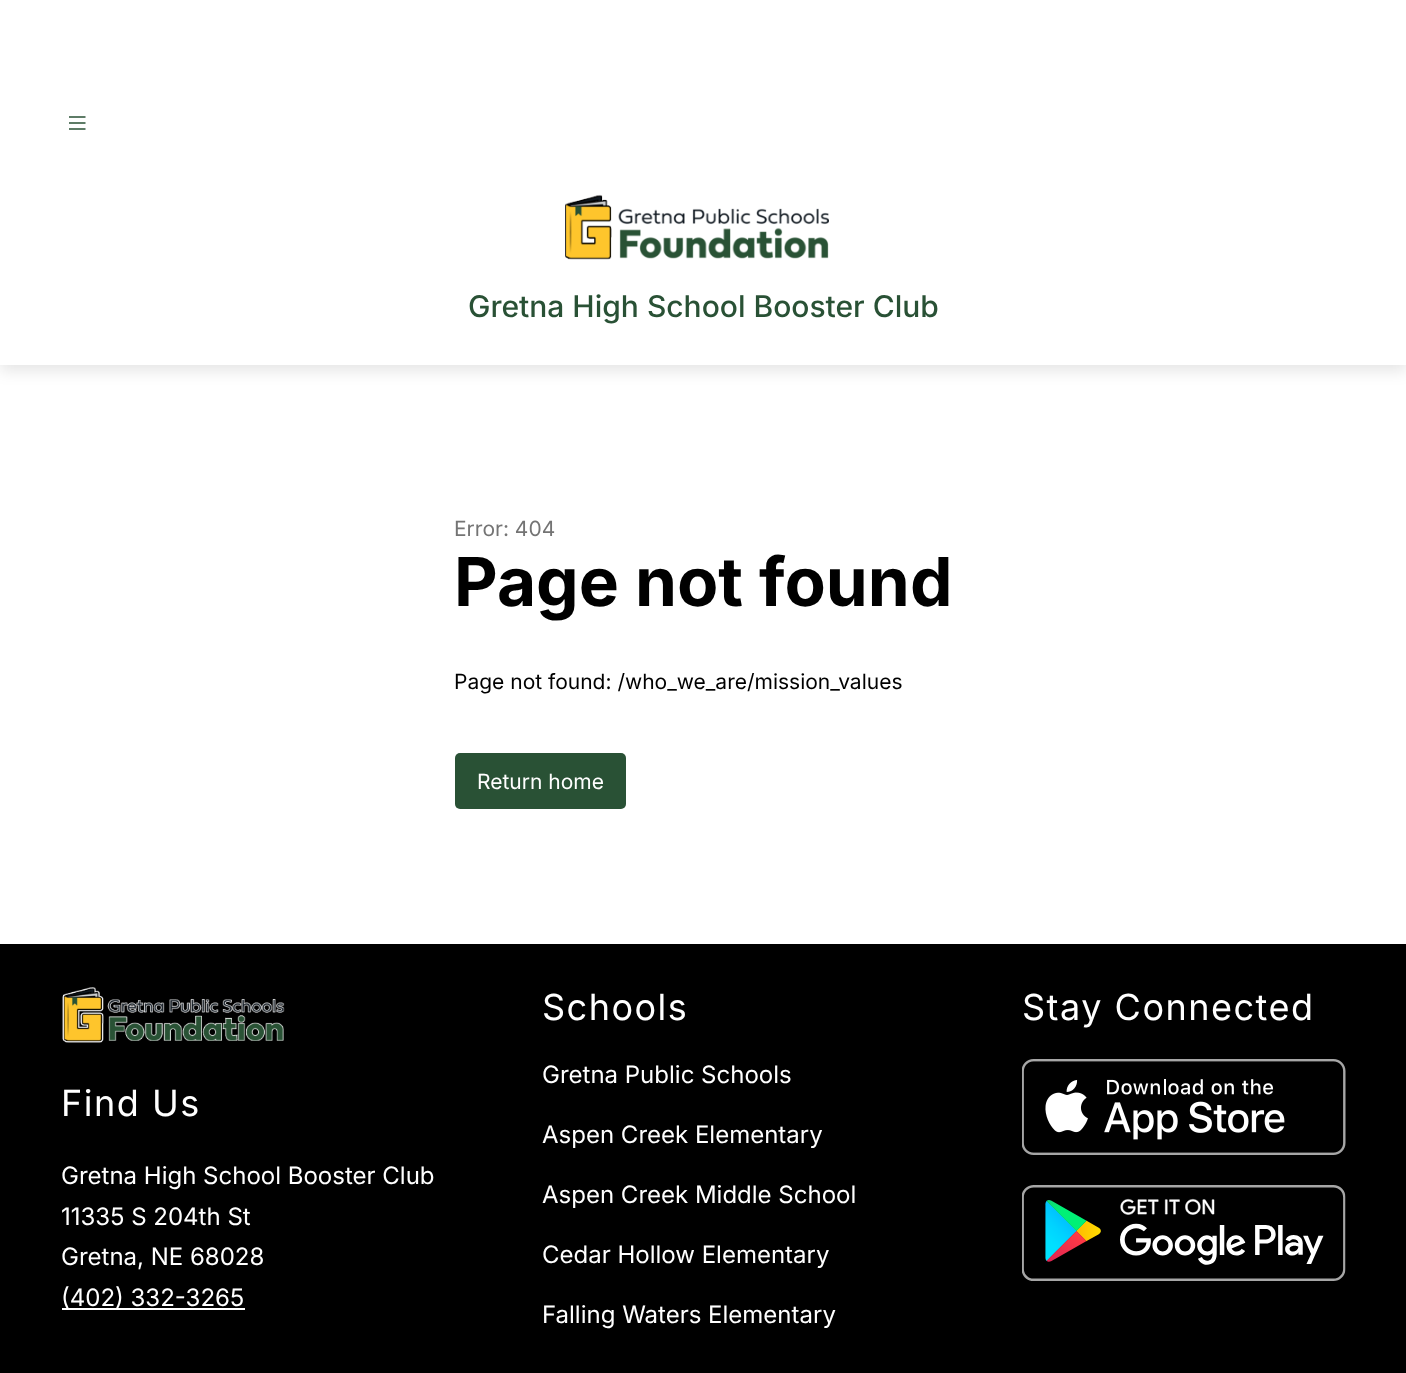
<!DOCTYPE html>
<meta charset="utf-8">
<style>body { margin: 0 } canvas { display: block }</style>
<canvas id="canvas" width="1406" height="1373"></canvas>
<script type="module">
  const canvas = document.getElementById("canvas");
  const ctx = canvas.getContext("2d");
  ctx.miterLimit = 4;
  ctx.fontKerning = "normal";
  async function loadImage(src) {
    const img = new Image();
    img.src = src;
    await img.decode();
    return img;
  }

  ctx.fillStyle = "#ffffff";
  ctx.fillRect(0, 0, 1406, 1373);
  ctx.fillStyle = "rgba(0, 0, 0, 0.1)";
  ctx.filter = "blur(7.5px)";
  ctx.beginPath();
  ctx.rect(0, 6, 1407, 365);
  ctx.fill();
  ctx.filter = "none";
  ctx.fillStyle = "#ffffff";
  ctx.fillRect(0, 0, 1406, 365);
  ctx.drawImage(await loadImage("img1.png"), 69, 116, 17, 14);
  ctx.drawImage(await loadImage("img2.png"), 565, 194, 264, 66);
  ctx.font = "500 30px Inter";
  ctx.fillStyle = "#295135";
  ctx.fillText("Gretna High School Booster Club", 468, 317);
  ctx.font = "21px Inter";
  ctx.fillStyle = "#747474";
  ctx.fillText("Error: 404", 454, 536);
  ctx.font = "bold 67.5px Inter";
  ctx.fillStyle = "#000000";
  ctx.fillText("Page not found", 454, 606);
  ctx.font = "21px Inter";
  ctx.fillText("Page not found: /who_we_are/mission_values", 454, 689);
  ctx.fillStyle = "#295135";
  ctx.beginPath();
  ctx.roundRect(455, 753, 171, 56, 5);
  ctx.fill();
  ctx.fillStyle = "#ffffff";
  ctx.fillText("Return home", 477, 789);
  ctx.fillStyle = "#000000";
  ctx.fillRect(0, 944, 1406, 429);
  ctx.letterSpacing = "1.5px";
  ctx.font = "36px Inter";
  ctx.fillStyle = "#ffffff";
  ctx.fillText("Schools", 542, 1020);
  ctx.letterSpacing = "0px";
  ctx.font = "24px Inter";
  ctx.fillText("Gretna Public Schools", 542, 1083);
  ctx.fillText("Aspen Creek Elementary", 542, 1143);
  ctx.fillText("Aspen Creek Middle School", 542, 1203);
  ctx.fillText("Cedar Hollow Elementary", 542, 1263);
  ctx.fillText("Falling Waters Elementary", 542, 1323);
  ctx.letterSpacing = "1.5px";
  ctx.font = "36px Inter";
  ctx.fillText("Stay Connected", 1022, 1020);
  ctx.drawImage(await loadImage("img3.png"), 1022, 1059, 324, 96);
  ctx.drawImage(await loadImage("img4.png"), 1022, 1185, 324, 96);
  ctx.drawImage(await loadImage("img5.png"), 62, 987, 223, 56);
  ctx.fillText("Find Us", 61, 1116);
  ctx.letterSpacing = "0px";
  ctx.font = "24px Inter";
  ctx.fillText("Gretna High School Booster Club", 61, 1184);
  ctx.fillText("11335 S 204th St", 61, 1225);
  ctx.fillText("Gretna, NE 68028", 61, 1265);
  ctx.fillRect(62, 1308, 183, 2);
  ctx.fillText("(402) 332-3265", 61, 1306);
</script>
